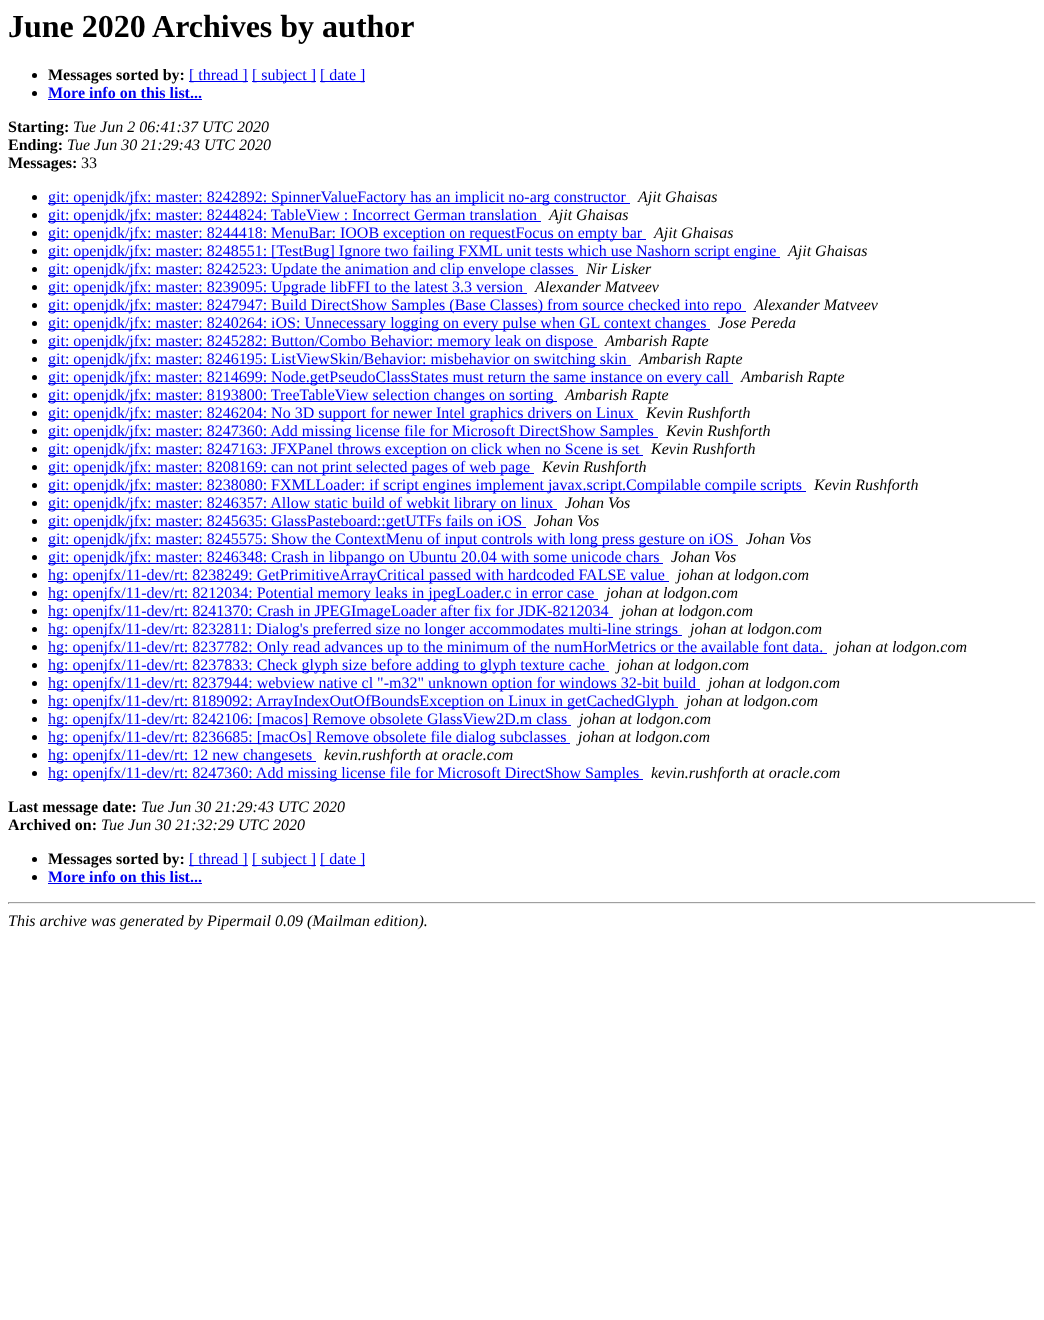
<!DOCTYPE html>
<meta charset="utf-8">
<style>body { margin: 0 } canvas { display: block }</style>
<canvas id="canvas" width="1044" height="1320"></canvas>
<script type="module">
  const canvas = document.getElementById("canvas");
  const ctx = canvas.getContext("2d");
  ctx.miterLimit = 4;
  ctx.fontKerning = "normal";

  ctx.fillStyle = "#ffffff";
  ctx.fillRect(0, 0, 1044, 1320);
  ctx.font = "bold 32px Liberation Serif";
  ctx.fillStyle = "#000000";
  ctx.fillText("June 2020 Archives by author", 8, 37);
  ctx.beginPath();
  ctx.arc(34.5, 75.5, 2.5, 0, Math.PI * 2);
  ctx.fill();
  ctx.font = "bold 16px Liberation Serif";
  ctx.fillText("Messages sorted by:", 48, 80);
  ctx.fillStyle = "#0000ee";
  ctx.fillRect(189, 81, 59, 1);
  ctx.font = "16px Liberation Serif";
  ctx.fillText("[ thread ]", 189, 80);
  ctx.fillRect(252, 81, 64, 1);
  ctx.fillText("[ subject ]", 252, 80);
  ctx.fillRect(320, 81, 45, 1);
  ctx.fillText("[ date ]", 320, 80);
  ctx.fillStyle = "#000000";
  ctx.beginPath();
  ctx.arc(34.5, 93.5, 2.5, 0, Math.PI * 2);
  ctx.fill();
  ctx.font = "bold 16px Liberation Serif";
  ctx.fillStyle = "#0000ee";
  ctx.fillText("More info on this list...", 48, 98);
  ctx.fillRect(48, 99, 154, 1);
  ctx.fillStyle = "#000000";
  ctx.fillText("Starting:", 8, 132);
  ctx.font = "italic 16px Liberation Serif";
  ctx.fillText("Tue Jun 2 06:41:37 UTC 2020", 73, 132);
  ctx.font = "bold 16px Liberation Serif";
  ctx.fillText("Ending:", 8, 150);
  ctx.font = "italic 16px Liberation Serif";
  ctx.fillText("Tue Jun 30 21:29:43 UTC 2020", 67, 150);
  ctx.font = "bold 16px Liberation Serif";
  ctx.fillText("Messages:", 8, 168);
  ctx.font = "16px Liberation Serif";
  ctx.fillText("33", 81, 168);
  ctx.beginPath();
  ctx.arc(34.5, 197.5, 2.5, 0, Math.PI * 2);
  ctx.fill();
  ctx.fillStyle = "#0000ee";
  ctx.fillRect(48, 203, 582, 1);
  ctx.fillText("git: openjdk/jfx: master: 8242892: SpinnerValueFactory has an implicit no-arg constructor", 48, 202);
  ctx.font = "italic 16px Liberation Serif";
  ctx.fillStyle = "#000000";
  ctx.fillText("Ajit Ghaisas", 638, 202);
  ctx.beginPath();
  ctx.arc(34.5, 215.5, 2.5, 0, Math.PI * 2);
  ctx.fill();
  ctx.fillStyle = "#0000ee";
  ctx.fillRect(48, 221, 493, 1);
  ctx.font = "16px Liberation Serif";
  ctx.fillText("git: openjdk/jfx: master: 8244824: TableView : Incorrect German translation", 48, 220);
  ctx.font = "italic 16px Liberation Serif";
  ctx.fillStyle = "#000000";
  ctx.fillText("Ajit Ghaisas", 549, 220);
  ctx.beginPath();
  ctx.arc(34.5, 233.5, 2.5, 0, Math.PI * 2);
  ctx.fill();
  ctx.fillStyle = "#0000ee";
  ctx.fillRect(48, 239, 598, 1);
  ctx.font = "16px Liberation Serif";
  ctx.fillText("git: openjdk/jfx: master: 8244418: MenuBar: IOOB exception on requestFocus on empty bar", 48, 238);
  ctx.font = "italic 16px Liberation Serif";
  ctx.fillStyle = "#000000";
  ctx.fillText("Ajit Ghaisas", 654, 238);
  ctx.beginPath();
  ctx.arc(34.5, 251.5, 2.5, 0, Math.PI * 2);
  ctx.fill();
  ctx.fillStyle = "#0000ee";
  ctx.fillRect(48, 257, 732, 1);
  ctx.font = "16px Liberation Serif";
  ctx.fillText("git: openjdk/jfx: master: 8248551: [TestBug] Ignore two failing FXML unit tests which use Nashorn script engine", 48, 256);
  ctx.font = "italic 16px Liberation Serif";
  ctx.fillStyle = "#000000";
  ctx.fillText("Ajit Ghaisas", 788, 256);
  ctx.beginPath();
  ctx.arc(34.5, 269.5, 2.5, 0, Math.PI * 2);
  ctx.fill();
  ctx.fillStyle = "#0000ee";
  ctx.fillRect(48, 275, 530, 1);
  ctx.font = "16px Liberation Serif";
  ctx.fillText("git: openjdk/jfx: master: 8242523: Update the animation and clip envelope classes", 48, 274);
  ctx.font = "italic 16px Liberation Serif";
  ctx.fillStyle = "#000000";
  ctx.fillText("Nir Lisker", 586, 274);
  ctx.beginPath();
  ctx.arc(34.5, 287.5, 2.5, 0, Math.PI * 2);
  ctx.fill();
  ctx.fillStyle = "#0000ee";
  ctx.fillRect(48, 293, 479, 1);
  ctx.font = "16px Liberation Serif";
  ctx.fillText("git: openjdk/jfx: master: 8239095: Upgrade libFFI to the latest 3.3 version", 48, 292);
  ctx.font = "italic 16px Liberation Serif";
  ctx.fillStyle = "#000000";
  ctx.fillText("Alexander Matveev", 535, 292);
  ctx.beginPath();
  ctx.arc(34.5, 305.5, 2.5, 0, Math.PI * 2);
  ctx.fill();
  ctx.fillStyle = "#0000ee";
  ctx.fillRect(48, 311, 698, 1);
  ctx.font = "16px Liberation Serif";
  ctx.fillText("git: openjdk/jfx: master: 8247947: Build DirectShow Samples (Base Classes) from source checked into repo", 48, 310);
  ctx.font = "italic 16px Liberation Serif";
  ctx.fillStyle = "#000000";
  ctx.fillText("Alexander Matveev", 754, 310);
  ctx.beginPath();
  ctx.arc(34.5, 323.5, 2.5, 0, Math.PI * 2);
  ctx.fill();
  ctx.fillStyle = "#0000ee";
  ctx.fillRect(48, 329, 662, 1);
  ctx.font = "16px Liberation Serif";
  ctx.fillText("git: openjdk/jfx: master: 8240264: iOS: Unnecessary logging on every pulse when GL context changes", 48, 328);
  ctx.font = "italic 16px Liberation Serif";
  ctx.fillStyle = "#000000";
  ctx.fillText("Jose Pereda", 718, 328);
  ctx.beginPath();
  ctx.arc(34.5, 341.5, 2.5, 0, Math.PI * 2);
  ctx.fill();
  ctx.fillStyle = "#0000ee";
  ctx.fillRect(48, 347, 549, 1);
  ctx.font = "16px Liberation Serif";
  ctx.fillText("git: openjdk/jfx: master: 8245282: Button/Combo Behavior: memory leak on dispose", 48, 346);
  ctx.font = "italic 16px Liberation Serif";
  ctx.fillStyle = "#000000";
  ctx.fillText("Ambarish Rapte", 605, 346);
  ctx.beginPath();
  ctx.arc(34.5, 359.5, 2.5, 0, Math.PI * 2);
  ctx.fill();
  ctx.fillStyle = "#0000ee";
  ctx.fillRect(48, 365, 583, 1);
  ctx.font = "16px Liberation Serif";
  ctx.fillText("git: openjdk/jfx: master: 8246195: ListViewSkin/Behavior: misbehavior on switching skin", 48, 364);
  ctx.font = "italic 16px Liberation Serif";
  ctx.fillStyle = "#000000";
  ctx.fillText("Ambarish Rapte", 639, 364);
  ctx.beginPath();
  ctx.arc(34.5, 377.5, 2.5, 0, Math.PI * 2);
  ctx.fill();
  ctx.fillStyle = "#0000ee";
  ctx.fillRect(48, 383, 685, 1);
  ctx.font = "16px Liberation Serif";
  ctx.fillText("git: openjdk/jfx: master: 8214699: Node.getPseudoClassStates must return the same instance on every call", 48, 382);
  ctx.font = "italic 16px Liberation Serif";
  ctx.fillStyle = "#000000";
  ctx.fillText("Ambarish Rapte", 741, 382);
  ctx.beginPath();
  ctx.arc(34.5, 395.5, 2.5, 0, Math.PI * 2);
  ctx.fill();
  ctx.fillStyle = "#0000ee";
  ctx.fillRect(48, 401, 509, 1);
  ctx.font = "16px Liberation Serif";
  ctx.fillText("git: openjdk/jfx: master: 8193800: TreeTableView selection changes on sorting", 48, 400);
  ctx.font = "italic 16px Liberation Serif";
  ctx.fillStyle = "#000000";
  ctx.fillText("Ambarish Rapte", 565, 400);
  ctx.beginPath();
  ctx.arc(34.5, 413.5, 2.5, 0, Math.PI * 2);
  ctx.fill();
  ctx.fillStyle = "#0000ee";
  ctx.fillRect(48, 419, 590, 1);
  ctx.font = "16px Liberation Serif";
  ctx.fillText("git: openjdk/jfx: master: 8246204: No 3D support for newer Intel graphics drivers on Linux", 48, 418);
  ctx.font = "italic 16px Liberation Serif";
  ctx.fillStyle = "#000000";
  ctx.fillText("Kevin Rushforth", 646, 418);
  ctx.beginPath();
  ctx.arc(34.5, 431.5, 2.5, 0, Math.PI * 2);
  ctx.fill();
  ctx.fillStyle = "#0000ee";
  ctx.fillRect(48, 437, 610, 1);
  ctx.font = "16px Liberation Serif";
  ctx.fillText("git: openjdk/jfx: master: 8247360: Add missing license file for Microsoft DirectShow Samples", 48, 436);
  ctx.font = "italic 16px Liberation Serif";
  ctx.fillStyle = "#000000";
  ctx.fillText("Kevin Rushforth", 666, 436);
  ctx.beginPath();
  ctx.arc(34.5, 449.5, 2.5, 0, Math.PI * 2);
  ctx.fill();
  ctx.fillStyle = "#0000ee";
  ctx.fillRect(48, 455, 595, 1);
  ctx.font = "16px Liberation Serif";
  ctx.fillText("git: openjdk/jfx: master: 8247163: JFXPanel throws exception on click when no Scene is set", 48, 454);
  ctx.font = "italic 16px Liberation Serif";
  ctx.fillStyle = "#000000";
  ctx.fillText("Kevin Rushforth", 651, 454);
  ctx.beginPath();
  ctx.arc(34.5, 467.5, 2.5, 0, Math.PI * 2);
  ctx.fill();
  ctx.fillStyle = "#0000ee";
  ctx.fillRect(48, 473, 486, 1);
  ctx.font = "16px Liberation Serif";
  ctx.fillText("git: openjdk/jfx: master: 8208169: can not print selected pages of web page", 48, 472);
  ctx.font = "italic 16px Liberation Serif";
  ctx.fillStyle = "#000000";
  ctx.fillText("Kevin Rushforth", 542, 472);
  ctx.beginPath();
  ctx.arc(34.5, 485.5, 2.5, 0, Math.PI * 2);
  ctx.fill();
  ctx.fillStyle = "#0000ee";
  ctx.fillRect(48, 491, 758, 1);
  ctx.font = "16px Liberation Serif";
  ctx.fillText("git: openjdk/jfx: master: 8238080: FXMLLoader: if script engines implement javax.script.Compilable compile scripts", 48, 490);
  ctx.font = "italic 16px Liberation Serif";
  ctx.fillStyle = "#000000";
  ctx.fillText("Kevin Rushforth", 814, 490);
  ctx.beginPath();
  ctx.arc(34.5, 503.5, 2.5, 0, Math.PI * 2);
  ctx.fill();
  ctx.fillStyle = "#0000ee";
  ctx.fillRect(48, 509, 509, 1);
  ctx.font = "16px Liberation Serif";
  ctx.fillText("git: openjdk/jfx: master: 8246357: Allow static build of webkit library on linux", 48, 508);
  ctx.font = "italic 16px Liberation Serif";
  ctx.fillStyle = "#000000";
  ctx.fillText("Johan Vos", 565, 508);
  ctx.beginPath();
  ctx.arc(34.5, 521.5, 2.5, 0, Math.PI * 2);
  ctx.fill();
  ctx.fillStyle = "#0000ee";
  ctx.fillRect(48, 527, 478, 1);
  ctx.font = "16px Liberation Serif";
  ctx.fillText("git: openjdk/jfx: master: 8245635: GlassPasteboard::getUTFs fails on iOS", 48, 526);
  ctx.font = "italic 16px Liberation Serif";
  ctx.fillStyle = "#000000";
  ctx.fillText("Johan Vos", 534, 526);
  ctx.beginPath();
  ctx.arc(34.5, 539.5, 2.5, 0, Math.PI * 2);
  ctx.fill();
  ctx.fillStyle = "#0000ee";
  ctx.fillRect(48, 545, 690, 1);
  ctx.font = "16px Liberation Serif";
  ctx.fillText("git: openjdk/jfx: master: 8245575: Show the ContextMenu of input controls with long press gesture on iOS", 48, 544);
  ctx.font = "italic 16px Liberation Serif";
  ctx.fillStyle = "#000000";
  ctx.fillText("Johan Vos", 746, 544);
  ctx.beginPath();
  ctx.arc(34.5, 557.5, 2.5, 0, Math.PI * 2);
  ctx.fill();
  ctx.fillStyle = "#0000ee";
  ctx.fillRect(48, 563, 615, 1);
  ctx.font = "16px Liberation Serif";
  ctx.fillText("git: openjdk/jfx: master: 8246348: Crash in libpango on Ubuntu 20.04 with some unicode chars", 48, 562);
  ctx.font = "italic 16px Liberation Serif";
  ctx.fillStyle = "#000000";
  ctx.fillText("Johan Vos", 671, 562);
  ctx.beginPath();
  ctx.arc(34.5, 575.5, 2.5, 0, Math.PI * 2);
  ctx.fill();
  ctx.fillStyle = "#0000ee";
  ctx.fillRect(48, 581, 621, 1);
  ctx.font = "16px Liberation Serif";
  ctx.fillText("hg: openjfx/11-dev/rt: 8238249: GetPrimitiveArrayCritical passed with hardcoded FALSE value", 48, 580);
  ctx.font = "italic 16px Liberation Serif";
  ctx.fillStyle = "#000000";
  ctx.fillText("johan at lodgon.com", 677, 580);
  ctx.beginPath();
  ctx.arc(34.5, 593.5, 2.5, 0, Math.PI * 2);
  ctx.fill();
  ctx.fillStyle = "#0000ee";
  ctx.fillRect(48, 599, 550, 1);
  ctx.font = "16px Liberation Serif";
  ctx.fillText("hg: openjfx/11-dev/rt: 8212034: Potential memory leaks in jpegLoader.c in error case", 48, 598);
  ctx.font = "italic 16px Liberation Serif";
  ctx.fillStyle = "#000000";
  ctx.fillText("johan at lodgon.com", 606, 598);
  ctx.beginPath();
  ctx.arc(34.5, 611.5, 2.5, 0, Math.PI * 2);
  ctx.fill();
  ctx.fillStyle = "#0000ee";
  ctx.fillRect(48, 617, 565, 1);
  ctx.font = "16px Liberation Serif";
  ctx.fillText("hg: openjfx/11-dev/rt: 8241370: Crash in JPEGImageLoader after fix for JDK-8212034", 48, 616);
  ctx.font = "italic 16px Liberation Serif";
  ctx.fillStyle = "#000000";
  ctx.fillText("johan at lodgon.com", 621, 616);
  ctx.beginPath();
  ctx.arc(34.5, 629.5, 2.5, 0, Math.PI * 2);
  ctx.fill();
  ctx.fillStyle = "#0000ee";
  ctx.fillRect(48, 635, 634, 1);
  ctx.font = "16px Liberation Serif";
  ctx.fillText("hg: openjfx/11-dev/rt: 8232811: Dialog's preferred size no longer accommodates multi-line strings", 48, 634);
  ctx.font = "italic 16px Liberation Serif";
  ctx.fillStyle = "#000000";
  ctx.fillText("johan at lodgon.com", 690, 634);
  ctx.beginPath();
  ctx.arc(34.5, 647.5, 2.5, 0, Math.PI * 2);
  ctx.fill();
  ctx.fillStyle = "#0000ee";
  ctx.fillRect(48, 653, 779, 1);
  ctx.font = "16px Liberation Serif";
  ctx.fillText("hg: openjfx/11-dev/rt: 8237782: Only read advances up to the minimum of the numHorMetrics or the available font data.", 48, 652);
  ctx.font = "italic 16px Liberation Serif";
  ctx.fillStyle = "#000000";
  ctx.fillText("johan at lodgon.com", 835, 652);
  ctx.beginPath();
  ctx.arc(34.5, 665.5, 2.5, 0, Math.PI * 2);
  ctx.fill();
  ctx.fillStyle = "#0000ee";
  ctx.fillRect(48, 671, 561, 1);
  ctx.font = "16px Liberation Serif";
  ctx.fillText("hg: openjfx/11-dev/rt: 8237833: Check glyph size before adding to glyph texture cache", 48, 670);
  ctx.font = "italic 16px Liberation Serif";
  ctx.fillStyle = "#000000";
  ctx.fillText("johan at lodgon.com", 617, 670);
  ctx.beginPath();
  ctx.arc(34.5, 683.5, 2.5, 0, Math.PI * 2);
  ctx.fill();
  ctx.fillStyle = "#0000ee";
  ctx.fillRect(48, 689, 652, 1);
  ctx.font = "16px Liberation Serif";
  ctx.fillText("hg: openjfx/11-dev/rt: 8237944: webview native cl \"-m32\" unknown option for windows 32-bit build", 48, 688);
  ctx.font = "italic 16px Liberation Serif";
  ctx.fillStyle = "#000000";
  ctx.fillText("johan at lodgon.com", 708, 688);
  ctx.beginPath();
  ctx.arc(34.5, 701.5, 2.5, 0, Math.PI * 2);
  ctx.fill();
  ctx.fillStyle = "#0000ee";
  ctx.fillRect(48, 707, 630, 1);
  ctx.font = "16px Liberation Serif";
  ctx.fillText("hg: openjfx/11-dev/rt: 8189092: ArrayIndexOutOfBoundsException on Linux in getCachedGlyph", 48, 706);
  ctx.font = "italic 16px Liberation Serif";
  ctx.fillStyle = "#000000";
  ctx.fillText("johan at lodgon.com", 686, 706);
  ctx.beginPath();
  ctx.arc(34.5, 719.5, 2.5, 0, Math.PI * 2);
  ctx.fill();
  ctx.fillStyle = "#0000ee";
  ctx.fillRect(48, 725, 523, 1);
  ctx.font = "16px Liberation Serif";
  ctx.fillText("hg: openjfx/11-dev/rt: 8242106: [macos] Remove obsolete GlassView2D.m class", 48, 724);
  ctx.font = "italic 16px Liberation Serif";
  ctx.fillStyle = "#000000";
  ctx.fillText("johan at lodgon.com", 579, 724);
  ctx.beginPath();
  ctx.arc(34.5, 737.5, 2.5, 0, Math.PI * 2);
  ctx.fill();
  ctx.fillStyle = "#0000ee";
  ctx.fillRect(48, 743, 522, 1);
  ctx.font = "16px Liberation Serif";
  ctx.fillText("hg: openjfx/11-dev/rt: 8236685: [macOs] Remove obsolete file dialog subclasses", 48, 742);
  ctx.font = "italic 16px Liberation Serif";
  ctx.fillStyle = "#000000";
  ctx.fillText("johan at lodgon.com", 578, 742);
  ctx.beginPath();
  ctx.arc(34.5, 755.5, 2.5, 0, Math.PI * 2);
  ctx.fill();
  ctx.fillStyle = "#0000ee";
  ctx.fillRect(48, 761, 268, 1);
  ctx.font = "16px Liberation Serif";
  ctx.fillText("hg: openjfx/11-dev/rt: 12 new changesets", 48, 760);
  ctx.font = "italic 16px Liberation Serif";
  ctx.fillStyle = "#000000";
  ctx.fillText("kevin.rushforth at oracle.com", 324, 760);
  ctx.beginPath();
  ctx.arc(34.5, 773.5, 2.5, 0, Math.PI * 2);
  ctx.fill();
  ctx.fillStyle = "#0000ee";
  ctx.fillRect(48, 779, 595, 1);
  ctx.font = "16px Liberation Serif";
  ctx.fillText("hg: openjfx/11-dev/rt: 8247360: Add missing license file for Microsoft DirectShow Samples", 48, 778);
  ctx.font = "italic 16px Liberation Serif";
  ctx.fillStyle = "#000000";
  ctx.fillText("kevin.rushforth at oracle.com", 651, 778);
  ctx.font = "bold 16px Liberation Serif";
  ctx.fillText("Last message date:", 8, 812);
  ctx.font = "italic 16px Liberation Serif";
  ctx.fillText("Tue Jun 30 21:29:43 UTC 2020", 141, 812);
  ctx.font = "bold 16px Liberation Serif";
  ctx.fillText("Archived on:", 8, 830);
  ctx.font = "italic 16px Liberation Serif";
  ctx.fillText("Tue Jun 30 21:32:29 UTC 2020", 101, 830);
  ctx.beginPath();
  ctx.arc(34.5, 859.5, 2.5, 0, Math.PI * 2);
  ctx.fill();
  ctx.font = "bold 16px Liberation Serif";
  ctx.fillText("Messages sorted by:", 48, 864);
  ctx.fillStyle = "#0000ee";
  ctx.fillRect(189, 865, 59, 1);
  ctx.font = "16px Liberation Serif";
  ctx.fillText("[ thread ]", 189, 864);
  ctx.fillRect(252, 865, 64, 1);
  ctx.fillText("[ subject ]", 252, 864);
  ctx.fillRect(320, 865, 45, 1);
  ctx.fillText("[ date ]", 320, 864);
  ctx.fillStyle = "#000000";
  ctx.beginPath();
  ctx.arc(34.5, 877.5, 2.5, 0, Math.PI * 2);
  ctx.fill();
  ctx.font = "bold 16px Liberation Serif";
  ctx.fillStyle = "#0000ee";
  ctx.fillText("More info on this list...", 48, 882);
  ctx.fillRect(48, 883, 154, 1);
  ctx.fillStyle = "#9f9f9f";
  ctx.fillRect(8, 902, 1028, 1);
  ctx.fillStyle = "#eeeeee";
  ctx.fillRect(1035, 902, 1, 2);
  ctx.fillRect(8, 903, 1028, 1);
  ctx.fillStyle = "#9f9f9f";
  ctx.fillRect(8, 902, 1, 2);
  ctx.font = "italic 16px Liberation Serif";
  ctx.fillStyle = "#000000";
  ctx.fillText("This archive was generated by Pipermail 0.09 (Mailman edition).", 8, 926);
</script>
